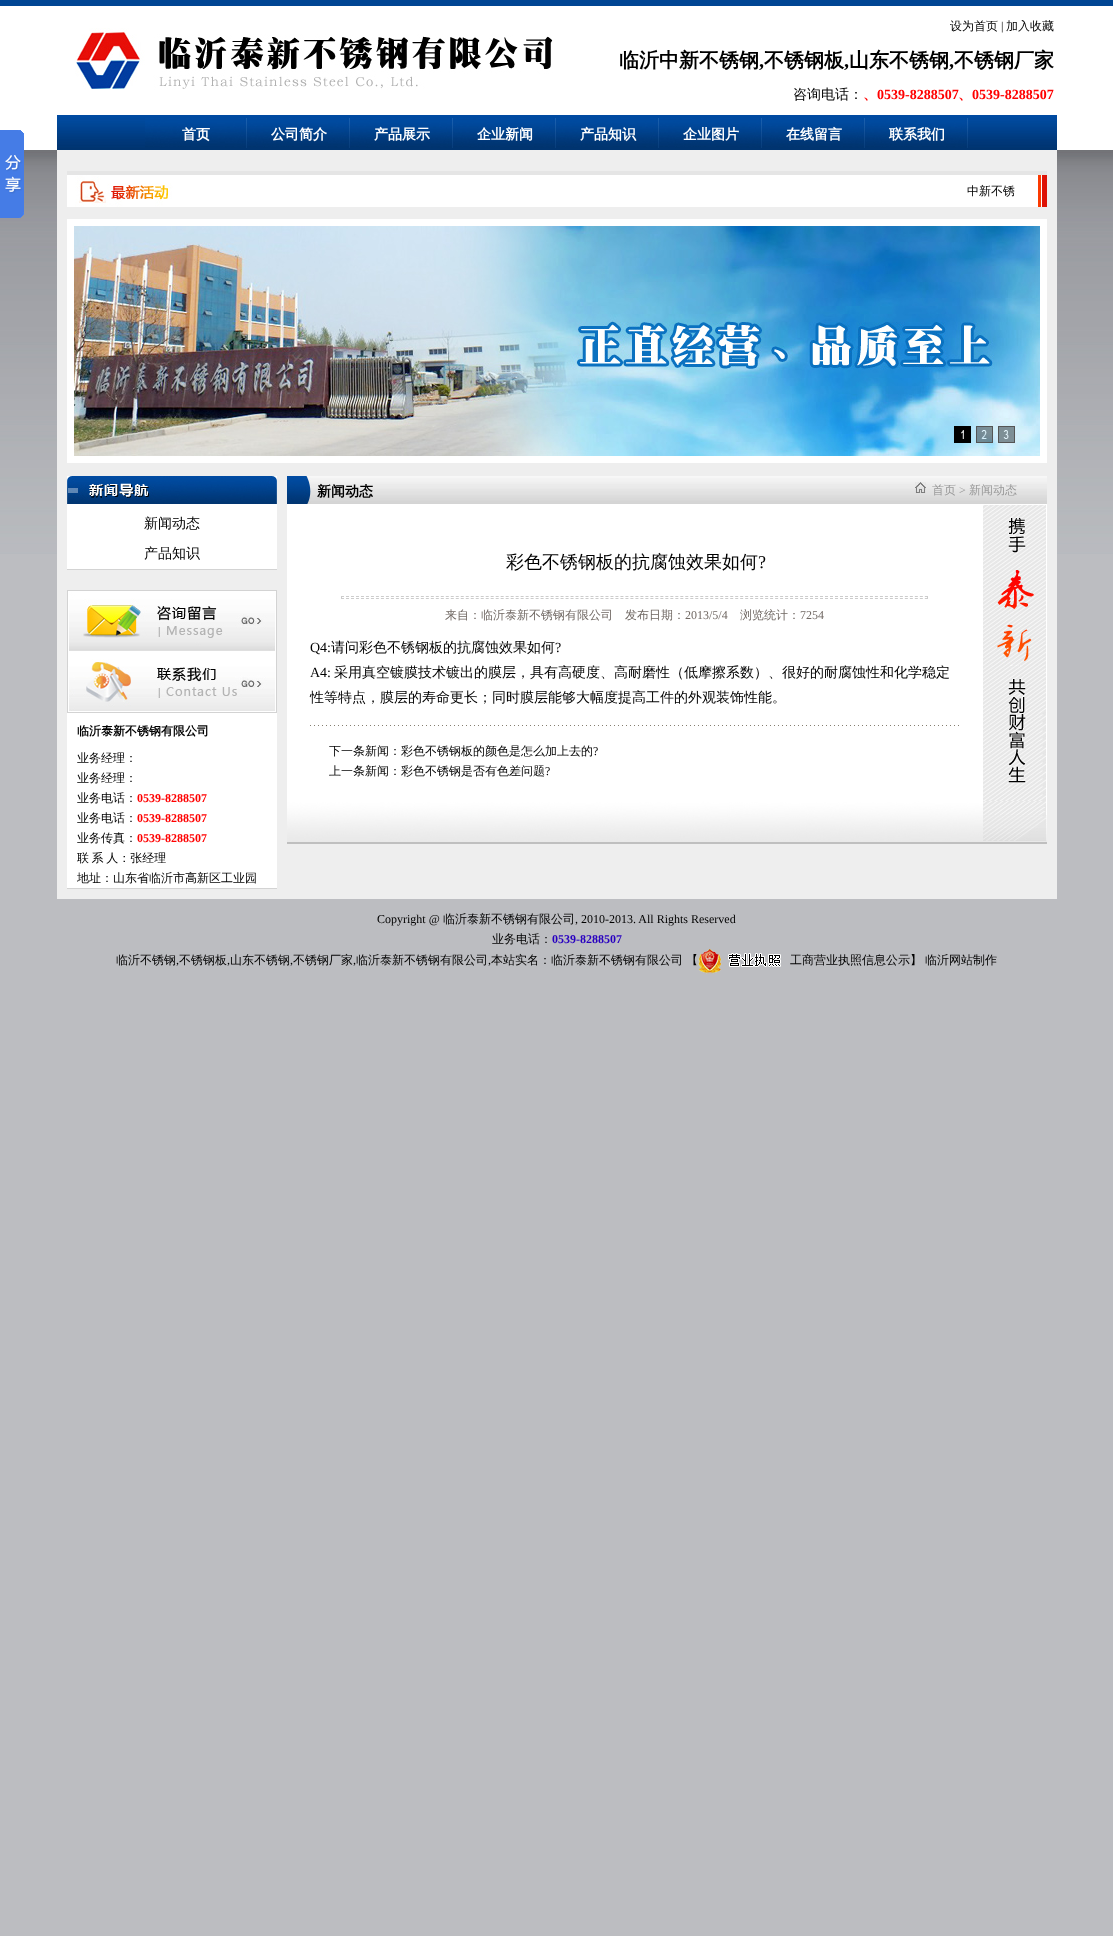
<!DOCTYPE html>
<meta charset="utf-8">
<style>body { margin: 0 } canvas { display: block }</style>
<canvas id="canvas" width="1113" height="1936"></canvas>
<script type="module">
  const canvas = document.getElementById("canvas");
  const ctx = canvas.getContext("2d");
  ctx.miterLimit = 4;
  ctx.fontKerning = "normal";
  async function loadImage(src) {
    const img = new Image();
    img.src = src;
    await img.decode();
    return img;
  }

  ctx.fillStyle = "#bcbdc1";
  ctx.fillRect(0, 0, 1113, 1936);
  ctx.drawImage(await loadImage("img1.png"), 0, 6, 1113, 548);
  ctx.fillStyle = "#004593";
  ctx.fillRect(0, 0, 1113, 6);
  ctx.drawImage(await loadImage("img2.png"), 75, 28, 478, 62);
  ctx.font = "500 12px WenQuanYi Zen Hei";
  ctx.fillStyle = "#000000";
  ctx.fillText("设为首页", 950, 30);
  ctx.font = "12px Liberation Serif";
  ctx.fillText("|", 1001, 30);
  ctx.font = "500 12px WenQuanYi Zen Hei";
  ctx.fillText("加入收藏", 1006, 30);
  ctx.font = "bold 20px WenQuanYi Zen Hei";
  ctx.fillText("临沂中新不锈钢", 619, 67);
  ctx.font = "bold 20px Liberation Serif";
  ctx.fillText(",", 759, 67);
  ctx.font = "bold 20px WenQuanYi Zen Hei";
  ctx.fillText("不锈钢板", 764, 67);
  ctx.font = "bold 20px Liberation Serif";
  ctx.fillText(",", 844, 67);
  ctx.font = "bold 20px WenQuanYi Zen Hei";
  ctx.fillText("山东不锈钢", 849, 67);
  ctx.font = "bold 20px Liberation Serif";
  ctx.fillText(",", 949, 67);
  ctx.font = "bold 20px WenQuanYi Zen Hei";
  ctx.fillText("不锈钢厂家", 954, 67);
  ctx.font = "500 14px WenQuanYi Zen Hei";
  ctx.fillText("咨询电话：", 793, 99);
  ctx.font = "bold 14px WenQuanYi Zen Hei";
  ctx.fillStyle = "#ff0000";
  ctx.fillText("、", 863, 99);
  ctx.font = "bold 14px Liberation Serif";
  ctx.fillText("0539-8288507", 877, 99);
  ctx.font = "bold 14px WenQuanYi Zen Hei";
  ctx.fillText("、", 958, 99);
  ctx.font = "bold 14px Liberation Serif";
  ctx.fillText("0539-8288507", 972, 99);
  ctx.drawImage(await loadImage("img3.png"), 57, 115, 1000, 35);
  ctx.drawImage(await loadImage("img4.png"), 145, 118, 103, 30);
  ctx.font = "bold 14px WenQuanYi Zen Hei";
  ctx.fillStyle = "#ffffff";
  ctx.fillText("首页", 182, 139);
  ctx.drawImage(await loadImage("img4.png"), 248, 118, 103, 30);
  ctx.fillText("公司简介", 271, 139);
  ctx.drawImage(await loadImage("img4.png"), 351, 118, 103, 30);
  ctx.fillText("产品展示", 374, 139);
  ctx.drawImage(await loadImage("img4.png"), 454, 118, 103, 30);
  ctx.fillText("企业新闻", 477, 139);
  ctx.drawImage(await loadImage("img4.png"), 557, 118, 103, 30);
  ctx.fillText("产品知识", 580, 139);
  ctx.drawImage(await loadImage("img4.png"), 660, 118, 103, 30);
  ctx.fillText("企业图片", 683, 139);
  ctx.drawImage(await loadImage("img4.png"), 763, 118, 103, 30);
  ctx.fillText("在线留言", 786, 139);
  ctx.drawImage(await loadImage("img4.png"), 866, 118, 103, 30);
  ctx.fillText("联系我们", 889, 139);
  ctx.drawImage(await loadImage("img5.png"), 0, 130, 24, 88);
  ctx.fillStyle = "#eeeeee";
  ctx.fillRect(57, 150, 1000, 749);
  ctx.fillStyle = "#e5e5e5";
  ctx.fillRect(67, 171, 980, 4);
  ctx.drawImage(await loadImage("img6.png"), 67, 175, 980, 32);
  ctx.font = "500 12px WenQuanYi Zen Hei";
  ctx.fillStyle = "#000000";
  ctx.fillText("中新不锈", 967, 195);
  ctx.fillStyle = "#ffffff";
  ctx.fillRect(67, 219, 980, 244);
  ctx.drawImage(await loadImage("img7.png"), 74, 226, 966, 230);
  ctx.strokeStyle = "#000000";
  ctx.strokeRect(954.5, 426.5, 16, 16);
  ctx.drawImage(await loadImage("img8.png"), 955, 427, 15, 15);
  ctx.strokeStyle = "#555555";
  ctx.strokeRect(976.5, 426.5, 16, 16);
  ctx.drawImage(await loadImage("img9.png"), 977, 427, 15, 15);
  ctx.strokeRect(998.5, 426.5, 16, 16);
  ctx.drawImage(await loadImage("img10.png"), 999, 427, 15, 15);
  ctx.drawImage(await loadImage("img11.png"), 67, 476, 210, 28);
  ctx.fillRect(67, 504, 210, 65);
  ctx.font = "500 14px WenQuanYi Zen Hei";
  ctx.fillStyle = "#000000";
  ctx.fillText("新闻动态", 144, 528);
  ctx.fillText("产品知识", 144, 558);
  ctx.fillStyle = "#d3d3d3";
  ctx.fillRect(67, 569, 210, 1);
  ctx.drawImage(await loadImage("img12.png"), 67, 590, 210, 61);
  ctx.drawImage(await loadImage("img13.png"), 67, 651, 210, 62);
  ctx.fillStyle = "#ffffff";
  ctx.fillRect(67, 713, 210, 175);
  ctx.font = "bold 12px WenQuanYi Zen Hei";
  ctx.fillStyle = "#000000";
  ctx.fillText("临沂泰新不锈钢有限公司", 77, 735);
  ctx.font = "500 12px WenQuanYi Zen Hei";
  ctx.fillText("业务经理：", 77, 762);
  ctx.fillText("业务经理：", 77, 782);
  ctx.fillText("业务电话：", 77, 802);
  ctx.font = "bold 12px Liberation Serif";
  ctx.fillStyle = "#ff0000";
  ctx.fillText("0539-8288507", 137, 802);
  ctx.font = "500 12px WenQuanYi Zen Hei";
  ctx.fillStyle = "#000000";
  ctx.fillText("业务电话：", 77, 822);
  ctx.font = "bold 12px Liberation Serif";
  ctx.fillStyle = "#ff0000";
  ctx.fillText("0539-8288507", 137, 822);
  ctx.font = "500 12px WenQuanYi Zen Hei";
  ctx.fillStyle = "#000000";
  ctx.fillText("业务传真：", 77, 842);
  ctx.font = "bold 12px Liberation Serif";
  ctx.fillStyle = "#ff0000";
  ctx.fillText("0539-8288507", 137, 842);
  ctx.wordSpacing = "-1px";
  ctx.font = "500 12px WenQuanYi Zen Hei";
  ctx.fillStyle = "#000000";
  ctx.fillText("联 系 人：张经理", 77, 862);
  ctx.wordSpacing = "0px";
  ctx.fillText("地址：山东省临沂市高新区工业园", 77, 882);
  ctx.fillStyle = "#d3d3d3";
  ctx.fillRect(67, 888, 210, 1);
  ctx.drawImage(await loadImage("img14.png"), 287, 476, 760, 28);
  ctx.font = "bold 14px WenQuanYi Zen Hei";
  ctx.fillStyle = "#000000";
  ctx.fillText("新闻动态", 317, 496);
  ctx.drawImage(await loadImage("img15.png"), 915, 482, 11, 11);
  ctx.font = "500 12px WenQuanYi Zen Hei";
  ctx.fillStyle = "#999999";
  ctx.fillText("首页", 932, 494);
  ctx.font = "12px Liberation Serif";
  ctx.fillText(">", 959, 494);
  ctx.font = "500 12px WenQuanYi Zen Hei";
  ctx.fillText("新闻动态", 969, 494);
  ctx.fillStyle = "#ffffff";
  ctx.fillRect(287, 504, 696, 297);
  ctx.font = "500 18px WenQuanYi Zen Hei";
  ctx.fillStyle = "#000000";
  ctx.fillText("彩色不锈钢板的抗腐蚀效果如何", 506, 568);
  ctx.font = "18px Liberation Serif";
  ctx.fillText("?", 758, 568);
  ctx.beginPath();
  ctx.moveTo(341, 596.5);
  ctx.lineTo(928, 596.5);
  ctx.strokeStyle = "#cccccc";
  ctx.setLineDash([3, 1.99]);
  ctx.stroke();
  ctx.fillStyle = "#cccccc";
  ctx.fillRect(927, 596, 1, 3);
  ctx.beginPath();
  ctx.moveTo(341, 598.5);
  ctx.lineTo(928, 598.5);
  ctx.stroke();
  ctx.fillRect(341, 596, 1, 3);
  ctx.font = "500 12px WenQuanYi Zen Hei";
  ctx.fillStyle = "#716964";
  ctx.fillText("来自：临沂泰新不锈钢有限公司　发布日期：", 445, 619);
  ctx.font = "12px Liberation Serif";
  ctx.fillText("2013/5/4", 685, 619);
  ctx.font = "500 12px WenQuanYi Zen Hei";
  ctx.fillText("浏览统计：", 740, 619);
  ctx.font = "12px Liberation Serif";
  ctx.fillText("7254", 800, 619);
  ctx.font = "14px Liberation Serif";
  ctx.fillStyle = "#000000";
  ctx.fillText("Q4:", 310, 652);
  ctx.font = "500 14px WenQuanYi Zen Hei";
  ctx.fillText("请问彩色不锈钢板的抗腐蚀效果如何", 331, 652);
  ctx.font = "14px Liberation Serif";
  ctx.fillText("?", 555, 652);
  ctx.fillText("A4:", 310, 677);
  ctx.font = "500 14px WenQuanYi Zen Hei";
  ctx.fillText("采用真空镀膜技术镀出的膜层，具有高硬度、高耐磨性（低摩擦系数）、很好的耐腐蚀性和化学稳定", 334, 677);
  ctx.fillText("性等特点，膜层的寿命更长；同时膜层能够大幅度提高工件的外观装饰性能。", 310, 702);
  ctx.drawImage(await loadImage("img16.png"), 310, 725, 649, 1);
  ctx.font = "500 12px WenQuanYi Zen Hei";
  ctx.fillText("下一条新闻：彩色不锈钢板的颜色是怎么加上去的", 329, 755);
  ctx.font = "12px Liberation Serif";
  ctx.fillText("?", 593, 755);
  ctx.font = "500 12px WenQuanYi Zen Hei";
  ctx.fillText("上一条新闻：彩色不锈钢是否有色差问题", 329, 775);
  ctx.font = "12px Liberation Serif";
  ctx.fillText("?", 545, 775);
  ctx.fillStyle = "#ffffff";
  ctx.fillRect(1046, 504, 1, 297);
  ctx.drawImage(await loadImage("img17.png"), 983, 504, 63, 297);
  ctx.drawImage(await loadImage("img18.png"), 287, 801, 760, 43);
  ctx.fillStyle = "#000000";
  ctx.fillText("Copyright @", 377, 923);
  ctx.font = "500 12px WenQuanYi Zen Hei";
  ctx.fillText("临沂泰新不锈钢有限公司", 443, 923);
  ctx.font = "12px Liberation Serif";
  ctx.fillText(", 2010-2013. All Rights Reserved", 575, 923);
  ctx.font = "500 12px WenQuanYi Zen Hei";
  ctx.fillText("业务电话：", 492, 943);
  ctx.font = "bold 12px Liberation Serif";
  ctx.fillStyle = "#2800c0";
  ctx.fillText("0539-8288507", 552, 943);
  ctx.font = "500 12px WenQuanYi Zen Hei";
  ctx.fillStyle = "#000000";
  ctx.fillText("临沂不锈钢", 116, 964);
  ctx.font = "12px Liberation Serif";
  ctx.fillText(",", 176, 964);
  ctx.font = "500 12px WenQuanYi Zen Hei";
  ctx.fillText("不锈钢板", 179, 964);
  ctx.font = "12px Liberation Serif";
  ctx.fillText(",", 227, 964);
  ctx.font = "500 12px WenQuanYi Zen Hei";
  ctx.fillText("山东不锈钢", 230, 964);
  ctx.font = "12px Liberation Serif";
  ctx.fillText(",", 290, 964);
  ctx.font = "500 12px WenQuanYi Zen Hei";
  ctx.fillText("不锈钢厂家", 293, 964);
  ctx.font = "12px Liberation Serif";
  ctx.fillText(",", 353, 964);
  ctx.font = "500 12px WenQuanYi Zen Hei";
  ctx.fillText("临沂泰新不锈钢有限公司", 356, 964);
  ctx.font = "12px Liberation Serif";
  ctx.fillText(",", 488, 964);
  ctx.font = "500 12px WenQuanYi Zen Hei";
  ctx.fillText("本站实名：临沂泰新不锈钢有限公司", 491, 964);
  ctx.fillText("【", 686, 964);
  ctx.drawImage(await loadImage("img19.png"), 698, 949, 83, 25);
  ctx.fillText("工商营业执照信息公示】", 790, 964);
  ctx.fillText("临沂网站制作", 925, 964);
</script>
